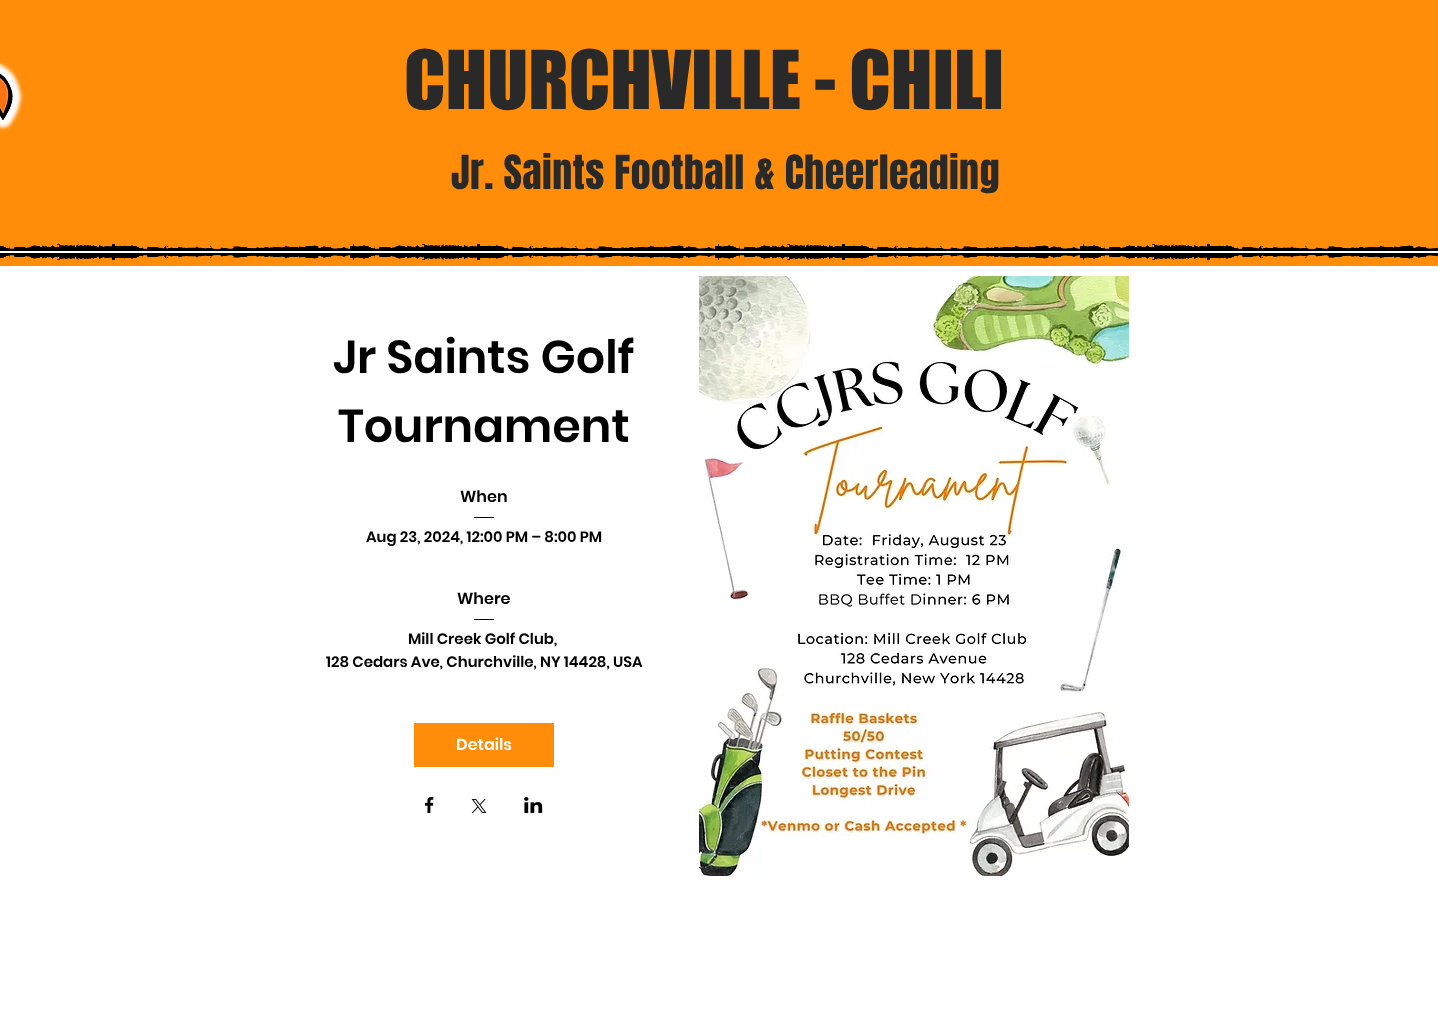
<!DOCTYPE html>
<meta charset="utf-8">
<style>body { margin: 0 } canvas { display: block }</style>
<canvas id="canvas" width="1438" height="1018"></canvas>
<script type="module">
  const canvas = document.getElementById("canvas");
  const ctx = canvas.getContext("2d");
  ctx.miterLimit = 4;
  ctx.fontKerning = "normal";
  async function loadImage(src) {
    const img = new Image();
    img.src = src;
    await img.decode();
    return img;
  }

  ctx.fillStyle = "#ffffff";
  ctx.fillRect(0, 0, 1438, 1018);
  ctx.fillStyle = "#ff8d0a";
  ctx.fillRect(0, 0, 1438, 266);
  ctx.drawImage(await loadImage("img1.png"), 0, 61, 24, 70);
  ctx.font = "75px 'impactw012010'";
  ctx.fillStyle = "#292929";
  ctx.fillText("CHURCHVILLE - CHILI", 404, 109);
  ctx.letterSpacing = "0.4px";
  ctx.font = "40px Anton";
  ctx.fillText("Jr. Saints Football & Cheerleading", 451, 189);
  ctx.drawImage(await loadImage("img2.png"), 0, 244, 1438, 7);
  ctx.fillStyle = "#ffffff";
  ctx.fillRect(0, 251, 1438, 2);
  ctx.drawImage(await loadImage("img3.png"), 0, 253, 1438, 7);
  ctx.letterSpacing = "0px";
  ctx.font = "600 46px Poppins";
  ctx.fillStyle = "#000000";
  ctx.fillText("Jr Saints Golf", 333, 373);
  ctx.fillText("Tournament", 338, 442);
  ctx.font = "600 16px Poppins";
  ctx.fillText("When", 460, 502);
  ctx.fillRect(474, 517, 20, 1);
  ctx.font = "600 15px Poppins";
  ctx.fillText("Aug 23, 2024, 12:00 PM – 8:00 PM", 366, 542);
  ctx.font = "600 16px Poppins";
  ctx.fillText("Where", 457, 604);
  ctx.fillRect(474, 619, 20, 1);
  ctx.font = "600 15px Poppins";
  ctx.fillText("Mill Creek Golf Club,", 408, 644);
  ctx.fillText("128 Cedars Ave, Churchville, NY 14428, USA", 326, 667);
  ctx.fillStyle = "#ff8d0a";
  ctx.fillRect(414, 723, 140, 44);
  ctx.font = "600 16px Poppins";
  ctx.fillStyle = "#ffffff";
  ctx.fillText("Details", 456, 750);
  ctx.drawImage(await loadImage("img4.png"), 425, 797, 9, 16);
  ctx.drawImage(await loadImage("img5.png"), 471, 799, 16, 14);
  ctx.drawImage(await loadImage("img6.png"), 524, 797, 19, 16);
  ctx.drawImage(await loadImage("img7.png"), 699, 276, 430, 600);
</script>
